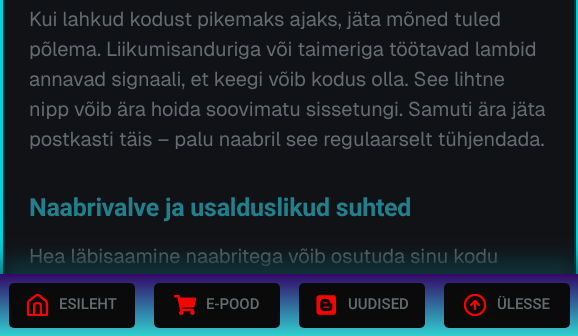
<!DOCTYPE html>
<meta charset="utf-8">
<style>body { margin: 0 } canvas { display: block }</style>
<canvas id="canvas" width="578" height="336"></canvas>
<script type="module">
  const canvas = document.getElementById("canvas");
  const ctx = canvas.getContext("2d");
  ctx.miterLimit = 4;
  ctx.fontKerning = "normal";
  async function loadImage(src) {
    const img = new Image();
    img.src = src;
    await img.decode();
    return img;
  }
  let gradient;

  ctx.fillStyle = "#ffffff";
  ctx.fillRect(0, 0, 578, 336);
  ctx.strokeStyle = "#00f3ff";
  ctx.lineWidth = 3;
  ctx.strokeRect(1.5, -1.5, 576, 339);
  ctx.fillStyle = "rgba(0, 0, 0, 0.22)";
  ctx.filter = "blur(22.5px)";
  ctx.beginPath();
  ctx.roundRect(-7, -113, 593, 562, 45);
  ctx.fill();
  ctx.filter = "none";
  ctx.fillStyle = "rgba(0, 243, 255, 0.22)";
  ctx.filter = "blur(22.5px)";
  ctx.beginPath();
  ctx.roundRect(3, -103, 573, 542, 35);
  ctx.fill();
  ctx.filter = "none";
  ctx.strokeStyle = "#0f2f34";
  ctx.strokeRect(4.5, -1.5, 570, 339);
  ctx.fillStyle = "#111216";
  ctx.fillRect(5, 0, 569, 274);
  ctx.font = "20px Geist";
  ctx.fillStyle = "#626c71";
  ctx.fillText("Kui lahkud kodust pikemaks ajaks, jäta mõned tuled", 29, 26);
  ctx.fillText("põlema. Liikumisanduriga või taimeriga töötavad lambid", 29, 56);
  ctx.fillText("annavad signaali, et keegi võib kodus olla. See lihtne", 29, 86);
  ctx.fillText("nipp võib ära hoida soovimatu sissetungi. Samuti ära jäta", 29, 116);
  ctx.fillText("postkasti täis – palu naabril see regulaarselt tühjendada.", 29, 146);
  ctx.letterSpacing = "-0.25px";
  ctx.font = "bold 25px Roboto";
  ctx.fillStyle = "#21808d";
  ctx.fillText("Naabrivalve ja usalduslikud suhted", 29, 216);
  ctx.letterSpacing = "0px";
  ctx.font = "20px Geist";
  ctx.fillStyle = "#626c71";
  ctx.fillText("Hea läbisaamine naabritega võib osutuda sinu kodu", 29, 263);
  ctx.fillStyle = "#10363d";
  ctx.filter = "blur(12.5px)";
  ctx.beginPath();
  ctx.rect(0, 261, 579, 63);
  ctx.fill();
  ctx.filter = "none";
  gradient = ctx.createLinearGradient(289, 336, 289, 274);
  gradient.addColorStop(0, "#30cfd0");
  gradient.addColorStop(1, "#330867");
  ctx.fillStyle = gradient;
  ctx.fillRect(0, 274, 578, 62);
  ctx.fillStyle = "#0a0a0a";
  ctx.beginPath();
  ctx.roundRect(9, 283, 126, 45, 5);
  ctx.fill();
  ctx.drawImage(await loadImage("img1.png"), 26, 294, 23, 22);
  ctx.font = "500 15px Roboto";
  ctx.fillStyle = "#626c71";
  ctx.fillText("ESILEHT", 59, 309);
  ctx.fillStyle = "#0a0a0a";
  ctx.beginPath();
  ctx.roundRect(154, 283, 126, 45, 5);
  ctx.fill();
  ctx.drawImage(await loadImage("img2.png"), 174, 295, 22, 20);
  ctx.fillStyle = "#626c71";
  ctx.fillText("E-POOD", 206, 309);
  ctx.fillStyle = "#0a0a0a";
  ctx.beginPath();
  ctx.roundRect(299, 283, 126, 45, 5);
  ctx.fill();
  ctx.drawImage(await loadImage("img3.png"), 316, 295, 21, 20);
  ctx.fillStyle = "#626c71";
  ctx.fillText("UUDISED", 348, 309);
  ctx.fillStyle = "#0a0a0a";
  ctx.beginPath();
  ctx.roundRect(444, 283, 126, 45, 5);
  ctx.fill();
  ctx.drawImage(await loadImage("img4.png"), 464, 294, 22, 22);
  ctx.fillStyle = "#626c71";
  ctx.fillText("ÜLESSE", 497, 309);
</script>
